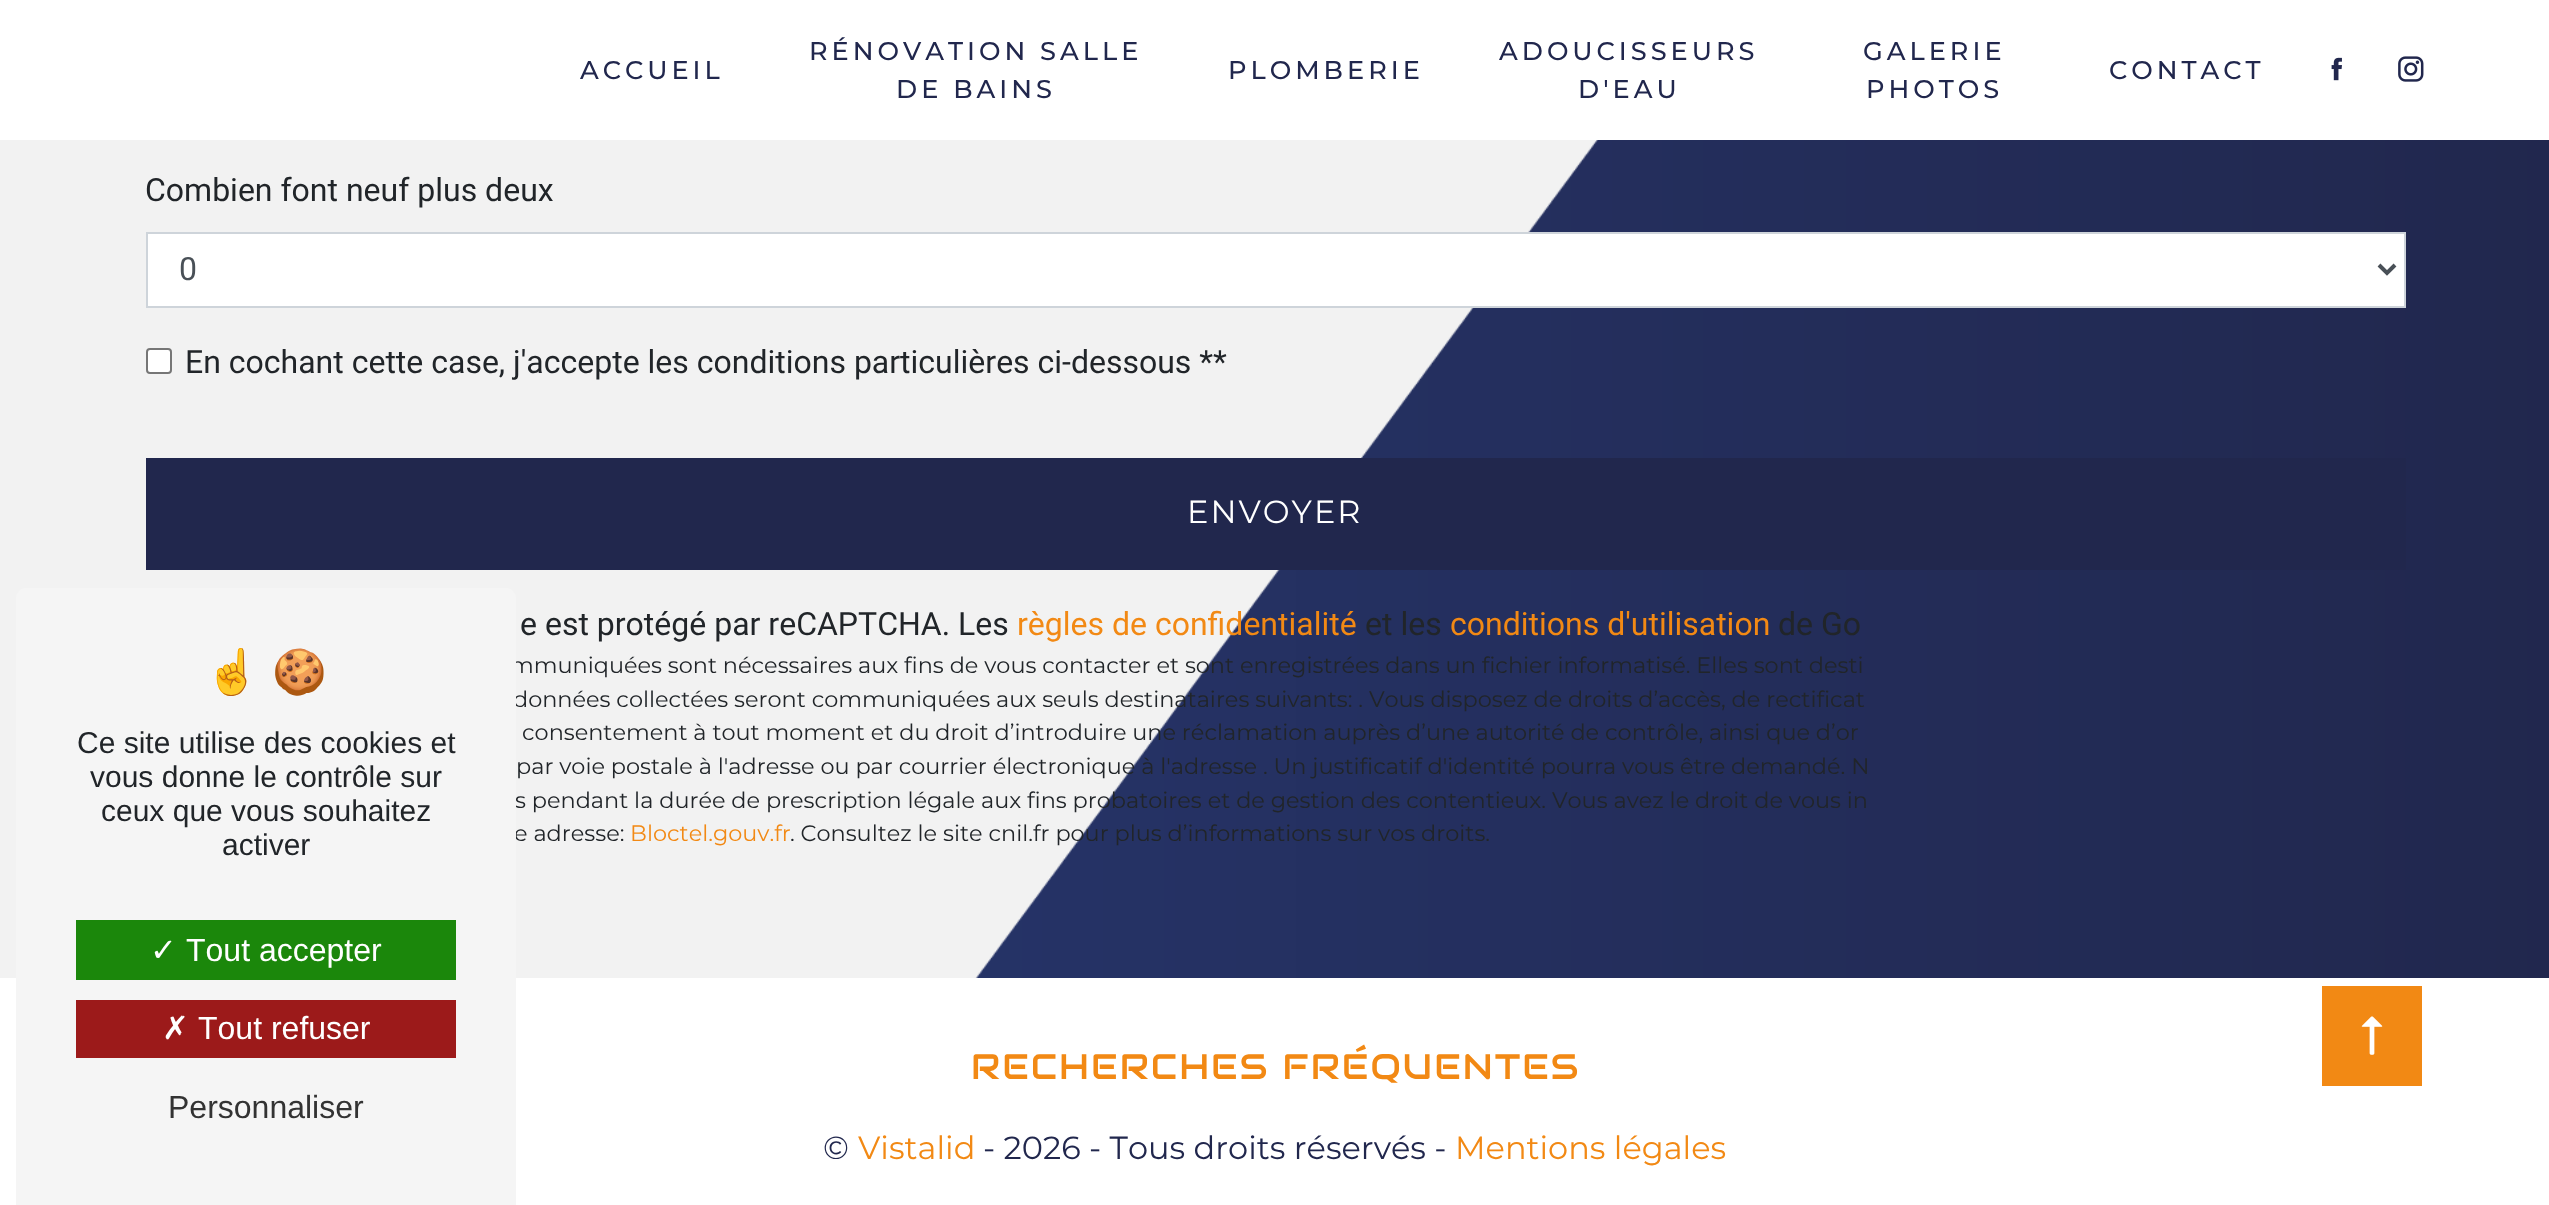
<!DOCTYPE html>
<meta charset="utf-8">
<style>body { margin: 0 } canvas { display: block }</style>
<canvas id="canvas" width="2549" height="1205"></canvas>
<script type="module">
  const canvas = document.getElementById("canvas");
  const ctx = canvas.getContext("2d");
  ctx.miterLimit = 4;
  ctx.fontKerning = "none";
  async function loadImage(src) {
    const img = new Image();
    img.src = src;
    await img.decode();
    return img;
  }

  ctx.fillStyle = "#ffffff";
  ctx.fillRect(0, 0, 2549, 1205);
  ctx.drawImage(await loadImage("img1.png"), 0, 140, 2549, 838);
  ctx.letterSpacing = "4px";
  ctx.font = "500 25.6px Montserrat";
  ctx.fillStyle = "#21274d";
  ctx.fillText("ACCUEIL", 580, 79);
  ctx.fillText("RÉNOVATION SALLE", 809, 60);
  ctx.fillText("DE BAINS", 896, 98);
  ctx.fillText("PLOMBERIE", 1228, 79);
  ctx.fillText("ADOUCISSEURS", 1499, 60);
  ctx.fillText("D'EAU", 1578, 98);
  ctx.fillText("GALERIE", 1863, 60);
  ctx.fillText("PHOTOS", 1866, 98);
  ctx.fillText("CONTACT", 2109, 79);
  ctx.drawImage(await loadImage("img2.png"), 2331, 57, 11, 24);
  ctx.drawImage(await loadImage("img3.png"), 2398, 56, 26, 26);
  ctx.letterSpacing = "0px";
  ctx.font = "32px Roboto";
  ctx.fillStyle = "#212529";
  ctx.fillText("Combien font neuf plus deux", 145, 201);
  ctx.fillStyle = "#ffffff";
  ctx.beginPath();
  ctx.rect(147, 233, 2258, 74);
  ctx.fill();
  ctx.strokeStyle = "#ced4da";
  ctx.lineWidth = 2;
  ctx.stroke();
  ctx.beginPath();
  ctx.moveTo(2379, 265);
  ctx.lineTo(2387, 273);
  ctx.lineTo(2395, 265);
  ctx.strokeStyle = "#495057";
  ctx.lineWidth = 4;
  ctx.stroke();
  ctx.fillStyle = "#495057";
  ctx.fillText("0", 179, 280);
  ctx.fillStyle = "#ffffff";
  ctx.beginPath();
  ctx.roundRect(147, 349, 24, 24, 3);
  ctx.fill();
  ctx.strokeStyle = "#767676";
  ctx.lineWidth = 2;
  ctx.stroke();
  ctx.fillStyle = "#212529";
  ctx.fillText("En cochant cette case, j'accepte les conditions particulières ci-dessous **", 185, 373);
  ctx.fillStyle = "#21274d";
  ctx.fillRect(146, 458, 2260, 112);
  ctx.letterSpacing = "2px";
  ctx.font = "32px Montserrat";
  ctx.fillStyle = "#ffffff";
  ctx.fillText("ENVOYER", 1187, 523);
  ctx.letterSpacing = "0px";
  ctx.font = "32px Roboto";
  ctx.fillStyle = "#212529";
  ctx.fillText("e est protégé par reCAPTCHA. Les", 520, 635);
  ctx.fillStyle = "#f28914";
  ctx.fillText("règles de confidentialité", 1017, 635);
  ctx.fillStyle = "#212529";
  ctx.fillText("et les", 1365, 635);
  ctx.fillStyle = "#f28914";
  ctx.fillText("conditions d'utilisation", 1450, 635);
  ctx.fillStyle = "#212529";
  ctx.fillText("de Go", 1778, 635);
  ctx.font = "22.4px Montserrat";
  ctx.fillText("mmuniquées sont nécessaires aux fins de vous contacter et sont enregistrées dans un fichier informatisé. Elles sont desti", 510, 673);
  ctx.fillText("données collectées seront communiquées aux seuls destinataires suivants: . Vous disposez de droits d’accès, de rectificat", 513, 707);
  ctx.fillText("consentement à tout moment et du droit d’introduire une réclamation auprès d’une autorité de contrôle, ainsi que d’or", 522, 740);
  ctx.fillText("par voie postale à l'adresse ou par courrier électronique à l'adresse . Un justificatif d'identité pourra vous être demandé. N", 516, 774);
  ctx.fillText("s pendant la durée de prescription légale aux fins probatoires et de gestion des contentieux. Vous avez le droit de vous in", 515, 808);
  ctx.fillText("e adresse:", 514, 841);
  ctx.fillStyle = "#f28914";
  ctx.fillText("Bloctel.gouv.fr", 630, 841);
  ctx.fillStyle = "#212529";
  ctx.fillText(". Consultez le site cnil.fr pour plus d’informations sur vos droits.", 790, 841);
  ctx.letterSpacing = "2px";
  ctx.font = "35.25px Audiowide";
  ctx.fillStyle = "#f28914";
  ctx.fillText("RECHERCHES FRÉQUENTES", 971, 1079);
  ctx.letterSpacing = "0px";
  ctx.font = "32px Montserrat";
  ctx.fillStyle = "#21274d";
  ctx.fillText("©", 823, 1159);
  ctx.fillStyle = "#f28914";
  ctx.fillText("Vistalid", 858, 1159);
  ctx.fillStyle = "#21274d";
  ctx.fillText("- 2026 - Tous droits réservés -", 983, 1159);
  ctx.fillStyle = "#f28914";
  ctx.fillText("Mentions légales", 1455, 1159);
  ctx.fillRect(2322, 986, 100, 100);
  ctx.drawImage(await loadImage("img4.png"), 2361, 1016, 22, 39);
  ctx.fillStyle = "#f5f5f5";
  ctx.beginPath();
  ctx.moveTo(26, 588);
  ctx.lineTo(506, 588);
  ctx.bezierCurveTo(511.5, 588, 516, 592.5, 516, 598);
  ctx.lineTo(516, 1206);
  ctx.lineTo(16, 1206);
  ctx.lineTo(16, 598);
  ctx.bezierCurveTo(16, 592.5, 20.5, 588, 26, 588);
  ctx.closePath();
  ctx.fill();
  ctx.font = "44px Noto Color Emoji";
  ctx.fillStyle = "#212529";
  ctx.fillText("☝", 205, 687);
  ctx.fillText("🍪", 272, 687);
  ctx.font = "30px Liberation Sans";
  ctx.fillText("Ce site utilise des cookies et", 77, 753);
  ctx.fillText("vous donne le contrôle sur", 90, 787);
  ctx.fillText("ceux que vous souhaitez", 101, 821);
  ctx.fillText("activer", 222, 855);
  ctx.fillStyle = "#1b870b";
  ctx.fillRect(76, 920, 380, 60);
  ctx.font = "32px DejaVu Sans";
  ctx.fillStyle = "#ffffff";
  ctx.fillText("✓", 150, 961);
  ctx.font = "32px Liberation Sans";
  ctx.fillText("Tout accepter", 186, 961);
  ctx.fillStyle = "#9c1a1a";
  ctx.fillRect(76, 1000, 380, 58);
  ctx.font = "32px DejaVu Sans";
  ctx.fillStyle = "#ffffff";
  ctx.fillText("✗", 162, 1039);
  ctx.font = "32px Liberation Sans";
  ctx.fillText("Tout refuser", 198, 1039);
  ctx.fillStyle = "#333333";
  ctx.fillText("Personnaliser", 168, 1118);
</script>
